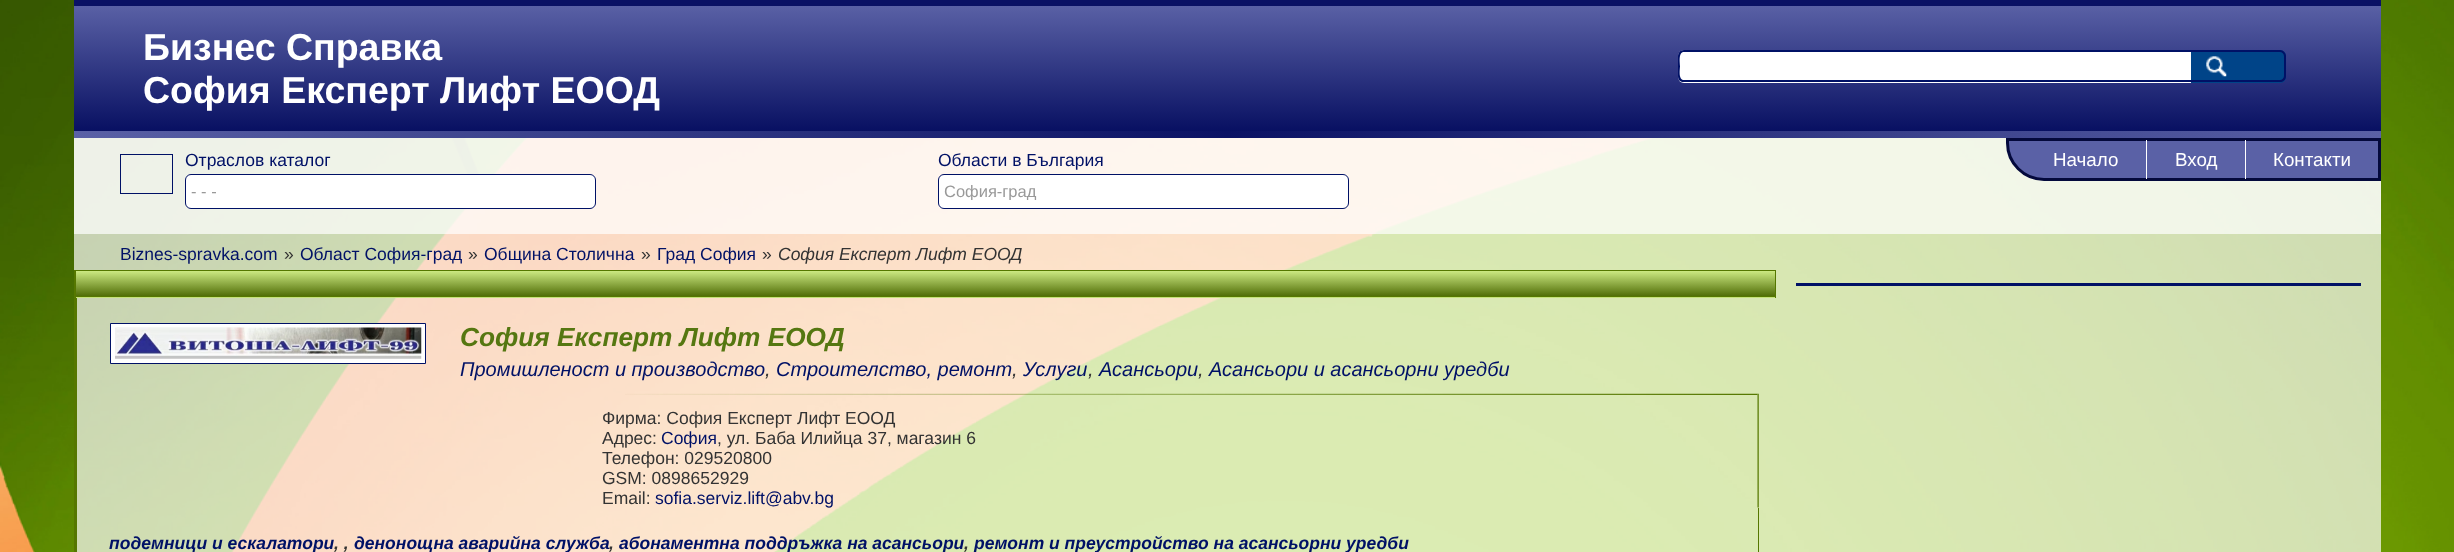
<!DOCTYPE html>
<meta charset="utf-8">
<style>body { margin: 0 } canvas { display: block }</style>
<canvas id="canvas" width="2454" height="552"></canvas>
<script type="module">
  const canvas = document.getElementById("canvas");
  const ctx = canvas.getContext("2d");
  ctx.miterLimit = 4;
  ctx.fontKerning = "normal";
  async function loadImage(src) {
    const img = new Image();
    img.src = src;
    await img.decode();
    return img;
  }
  let gradient;

  ctx.fillStyle = "#ffffff";
  ctx.fillRect(0, 0, 2454, 552);
  ctx.drawImage(await loadImage("img1.png"), 0, 0, 2454, 552);
  gradient = ctx.createLinearGradient(2381, 72, 74, 72);
  gradient.addColorStop(0, "#5a61a6");
  gradient.addColorStop(0.5, "#0b1264");
  gradient.addColorStop(1, "#5a61a6");
  ctx.fillStyle = gradient;
  ctx.fillRect(74, 131, 2307, 7);
  ctx.fillStyle = "#0a1164";
  ctx.fillRect(74, 0, 2307, 6);
  gradient = ctx.createLinearGradient(1228, 131, 1228, 6.2);
  gradient.addColorStop(0, "#081062");
  gradient.addColorStop(1, "#5960a5");
  ctx.fillStyle = gradient;
  ctx.fillRect(74, 6, 2307, 125);
  ctx.font = "bold 37.5px Liberation Sans";
  ctx.fillStyle = "#ffffff";
  ctx.fillText("Бизнес Справка", 143, 60);
  ctx.fillText("София Експерт Лифт ЕООД", 143, 103);
  ctx.beginPath();
  ctx.roundRect(1678, 50, 513, 33, [6, 0, 0, 6]);
  ctx.fill();
  ctx.fillStyle = "#001166";
  ctx.beginPath();
  ctx.moveTo(1684, 50);
  ctx.lineTo(2191, 50);
  ctx.lineTo(2191, 82);
  ctx.lineTo(1684, 82);
  ctx.bezierCurveTo(1680, 82, 1678, 80, 1678, 76);
  ctx.lineTo(1678, 56);
  ctx.bezierCurveTo(1678, 53, 1680, 50, 1684, 50);
  ctx.closePath();
  ctx.moveTo(1684, 52);
  ctx.lineTo(2191, 52);
  ctx.lineTo(2191, 80);
  ctx.lineTo(1684, 80);
  ctx.bezierCurveTo(1678, 80, 1680, 69, 1680, 66);
  ctx.bezierCurveTo(1680, 63, 1678, 52, 1684, 52);
  ctx.closePath();
  ctx.fill("evenodd");
  ctx.fillStyle = "#004488";
  ctx.beginPath();
  ctx.roundRect(2191, 50, 95, 33, [0, 6, 6, 0]);
  ctx.fill();
  ctx.drawImage(await loadImage("img2.png"), 2206, 56, 21, 21);
  ctx.fillStyle = "#001166";
  ctx.beginPath();
  ctx.moveTo(2191, 50);
  ctx.lineTo(2280, 50);
  ctx.bezierCurveTo(2283, 50, 2286, 53, 2286, 56);
  ctx.lineTo(2286, 76);
  ctx.bezierCurveTo(2286, 80, 2283, 82, 2280, 82);
  ctx.lineTo(2191, 82);
  ctx.closePath();
  ctx.moveTo(2191, 52);
  ctx.lineTo(2280, 52);
  ctx.bezierCurveTo(2282, 52, 2284, 54, 2284, 56);
  ctx.lineTo(2284, 76);
  ctx.bezierCurveTo(2284, 78, 2282, 80, 2280, 80);
  ctx.lineTo(2191, 80);
  ctx.closePath();
  ctx.fill("evenodd");
  ctx.fillStyle = "rgba(255, 255, 255, 0.7)";
  ctx.fillRect(74, 138, 2307, 96);
  ctx.strokeStyle = "#001166";
  ctx.strokeRect(120.5, 154.5, 52, 39);
  ctx.font = "17.5px Liberation Sans";
  ctx.fillStyle = "#001166";
  ctx.fillText("Отраслов каталог", 185, 166);
  ctx.fillStyle = "#ffffff";
  ctx.beginPath();
  ctx.roundRect(185.5, 174.5, 410, 34, 5.5);
  ctx.fill();
  ctx.stroke();
  ctx.font = "16.5px Liberation Sans";
  ctx.fillStyle = "#999999";
  ctx.fillText("- - -", 191, 197);
  ctx.font = "17.5px Liberation Sans";
  ctx.fillStyle = "#001166";
  ctx.fillText("Области в България", 938, 166);
  ctx.fillStyle = "#ffffff";
  ctx.beginPath();
  ctx.roundRect(938.5, 174.5, 410, 34, 5.5);
  ctx.fill();
  ctx.stroke();
  ctx.save();
  ctx.beginPath();
  ctx.rect(944, 181, 399, 19);
  ctx.clip();
  ctx.font = "16.5px Liberation Sans";
  ctx.fillStyle = "#999999";
  ctx.fillText("София-град", 944, 197);
  ctx.restore();
  ctx.fillStyle = "#5a61a6";
  ctx.beginPath();
  ctx.roundRect(2007.5, 139.5, 372, 40, [0, 0, 0, 36.5]);
  ctx.fill();
  ctx.strokeStyle = "#04093c";
  ctx.lineWidth = 3;
  ctx.stroke();
  ctx.font = "18.75px Liberation Sans";
  ctx.fillStyle = "#ffffff";
  ctx.fillText("Начало", 2053, 166);
  ctx.fillRect(2146, 140, 1, 39);
  ctx.fillText("Вход", 2175, 166);
  ctx.fillRect(2245, 140, 1, 39);
  ctx.fillText("Контакти", 2273, 166);
  ctx.font = "17.5px Liberation Sans";
  ctx.fillStyle = "#001166";
  ctx.fillText("Biznes-spravka.com", 120, 260);
  ctx.fillStyle = "#333333";
  ctx.fillText("»", 284, 260);
  ctx.fillStyle = "#001166";
  ctx.fillText("Област София-град", 300, 260);
  ctx.fillStyle = "#333333";
  ctx.fillText("»", 468, 260);
  ctx.fillStyle = "#001166";
  ctx.fillText("Община Столична", 484, 260);
  ctx.fillStyle = "#333333";
  ctx.fillText("»", 641, 260);
  ctx.fillStyle = "#001166";
  ctx.fillText("Град София", 657, 260);
  ctx.fillStyle = "#333333";
  ctx.fillText("»", 762, 260);
  ctx.font = "italic 17.5px Liberation Sans";
  ctx.fillText("София Експерт Лифт ЕООД", 778, 260);
  ctx.fillStyle = "#001166";
  ctx.fillRect(1796, 283, 565, 3);
  ctx.fillStyle = "#557700";
  ctx.fillRect(74, 270, 3, 282);
  gradient = ctx.createLinearGradient(926, 296, 926, 271);
  gradient.addColorStop(0, "#516e08");
  gradient.addColorStop(1, "#cce982");
  ctx.fillStyle = gradient;
  ctx.fillRect(76, 271, 1699, 25);
  gradient = ctx.createLinearGradient(926, 321, 926, 296);
  gradient.addColorStop(0, "#516e08");
  gradient.addColorStop(1, "#cce982");
  ctx.fillStyle = gradient;
  ctx.fillRect(76, 297, 1700, 1);
  ctx.fillStyle = "#557700";
  ctx.fillRect(76, 270, 1700, 1);
  ctx.fillRect(1775, 270, 1, 28);
  ctx.fillRect(76, 296, 1700, 1);
  ctx.fillStyle = "#ffffff";
  ctx.beginPath();
  ctx.rect(110.5, 323.5, 315, 40);
  ctx.fill();
  ctx.strokeStyle = "#001166";
  ctx.lineWidth = 1;
  ctx.stroke();
  ctx.drawImage(await loadImage("img3.png"), 115, 327, 307, 32);
  ctx.font = "italic bold 26.25px Liberation Sans";
  ctx.fillStyle = "#557711";
  ctx.fillText("София Експерт Лифт ЕООД", 460, 346);
  ctx.font = "italic 20px Liberation Sans";
  ctx.fillStyle = "#001166";
  ctx.fillText("Промишленост и производство", 460, 376);
  ctx.fillStyle = "#333333";
  ctx.fillText(",", 765, 376);
  ctx.fillStyle = "#001166";
  ctx.fillText("Строителство, ремонт", 776, 376);
  ctx.fillStyle = "#333333";
  ctx.fillText(",", 1012, 376);
  ctx.fillStyle = "#001166";
  ctx.fillText("Услуги", 1023, 376);
  ctx.fillStyle = "#333333";
  ctx.fillText(",", 1088, 376);
  ctx.fillStyle = "#001166";
  ctx.fillText("Асансьори", 1099, 376);
  ctx.fillStyle = "#333333";
  ctx.fillText(",", 1198, 376);
  ctx.fillStyle = "#001166";
  ctx.fillText("Асансьори и асансьорни уредби", 1209, 376);
  ctx.drawImage(await loadImage("img4.png"), 625, 393, 1134, 115);
  ctx.font = "17.5px Liberation Sans";
  ctx.fillStyle = "#333333";
  ctx.fillText("Фирма: София Експерт Лифт ЕООД", 602, 424);
  ctx.fillText("Адрес:", 602, 444);
  ctx.fillStyle = "#001166";
  ctx.fillText("София", 661, 444);
  ctx.fillStyle = "#333333";
  ctx.fillText(", ул. Баба Илийца 37, магазин 6", 717, 444);
  ctx.fillText("Телефон: 029520800", 602, 464);
  ctx.fillText("GSM: 0898652929", 602, 484);
  ctx.fillText("Email:", 602, 504);
  ctx.fillStyle = "#001166";
  ctx.fillText("sofia.serviz.lift@abv.bg", 655, 504);
  ctx.fillStyle = "#557700";
  ctx.fillRect(1758, 508, 1, 44);
  ctx.font = "italic bold 17.5px Liberation Sans";
  ctx.fillStyle = "#001166";
  ctx.fillText("подемници и ескалатори", 109, 549);
  ctx.fillStyle = "#333333";
  ctx.fillText(", ,", 334, 549);
  ctx.fillStyle = "#001166";
  ctx.fillText("денонощна аварийна служба", 354, 549);
  ctx.fillStyle = "#333333";
  ctx.fillText(",", 609, 549);
  ctx.fillStyle = "#001166";
  ctx.fillText("абонаментна поддръжка на асансьори", 619, 549);
  ctx.fillStyle = "#333333";
  ctx.fillText(",", 964, 549);
  ctx.fillStyle = "#001166";
  ctx.fillText("ремонт и преустройство на асансьорни уредби", 974, 549);
</script>
